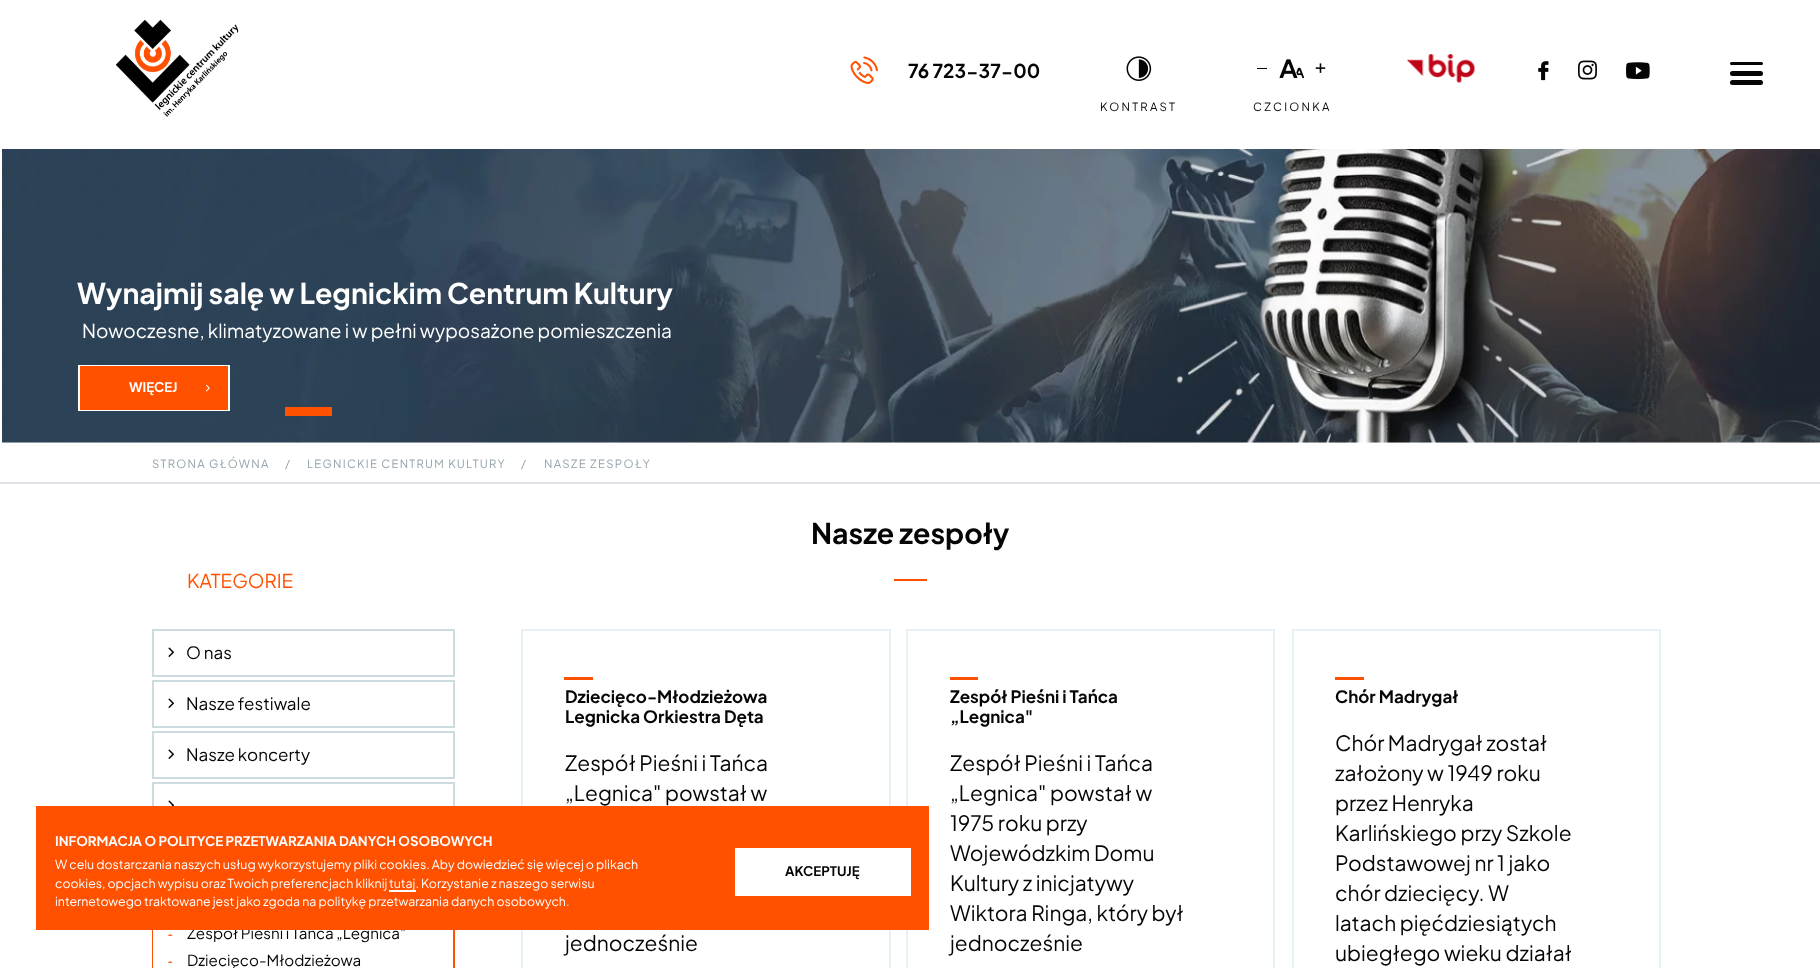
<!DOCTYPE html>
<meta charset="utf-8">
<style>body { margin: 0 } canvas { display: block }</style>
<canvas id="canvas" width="1820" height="968"></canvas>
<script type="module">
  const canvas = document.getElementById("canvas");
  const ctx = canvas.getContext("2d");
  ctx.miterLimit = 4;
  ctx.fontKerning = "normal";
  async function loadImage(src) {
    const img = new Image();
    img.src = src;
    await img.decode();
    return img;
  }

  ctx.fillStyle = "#ffffff";
  ctx.fillRect(0, 0, 1820, 968);
  ctx.drawImage(await loadImage("img1.png"), 115, 19, 124, 98);
  ctx.drawImage(await loadImage("img2.png"), 850, 56, 28, 28);
  ctx.font = "bold 19px Plus Jakarta Sans";
  ctx.fillStyle = "#050505";
  ctx.fillText("76 723-37-00", 908, 78);
  ctx.drawImage(await loadImage("img3.png"), 1407, 54, 68, 29);
  ctx.drawImage(await loadImage("img4.png"), 1538, 61, 11, 20);
  ctx.drawImage(await loadImage("img5.png"), 1578, 60, 19, 20);
  ctx.drawImage(await loadImage("img6.png"), 1626, 62, 24, 18);
  ctx.beginPath();
  ctx.roundRect(1730, 62, 33, 3, 1.5);
  ctx.fill();
  ctx.beginPath();
  ctx.roundRect(1730, 71, 33, 5, 2.5);
  ctx.fill();
  ctx.beginPath();
  ctx.roundRect(1730, 80, 33, 5, 2.5);
  ctx.fill();
  ctx.drawImage(await loadImage("img7.png"), 1126, 56, 26, 25);
  ctx.letterSpacing = "2.25px";
  ctx.font = "11.4px Plus Jakarta Sans";
  ctx.fillText("KONTRAST", 1100, 111);
  ctx.fillRect(1257, 68, 10, 1);
  ctx.drawImage(await loadImage("img8.png"), 1279, 59, 26, 19);
  ctx.drawImage(await loadImage("img9.png"), 1315, 63, 11, 10);
  ctx.fillText("CZCIONKA", 1253, 111);
  ctx.drawImage(await loadImage("img10.png"), 2, 149, 1818, 294);
  ctx.letterSpacing = "0px";
  ctx.font = "bold 28.45px Plus Jakarta Sans";
  ctx.fillStyle = "#ffffff";
  ctx.fillText("Wynajmij salę w Legnickim Centrum Kultury", 77, 304);
  ctx.font = "19px Plus Jakarta Sans";
  ctx.fillText("Nowoczesne, klimatyzowane i w pełni wyposażone pomieszczenia", 82, 338);
  ctx.strokeStyle = "#ffffff";
  ctx.lineWidth = 2;
  ctx.strokeRect(79, 366, 150, 44);
  ctx.fillStyle = "#ff5100";
  ctx.fillRect(80, 366, 148, 44);
  ctx.font = "bold 13.25px Plus Jakarta Sans";
  ctx.fillStyle = "#ffffff";
  ctx.fillText("WIĘCEJ", 129, 392);
  ctx.drawImage(await loadImage("img11.png"), 205, 384, 5, 8);
  ctx.fillStyle = "#ff5100";
  ctx.fillRect(285, 407, 47, 9);
  ctx.fillStyle = "#dfe3e8";
  ctx.fillRect(0, 482, 1820, 2);
  ctx.letterSpacing = "1.25px";
  ctx.font = "11.4px Plus Jakarta Sans";
  ctx.fillStyle = "#92a4ab";
  ctx.fillText("STRONA GŁÓWNA", 152, 468);
  ctx.fillText("/", 285, 468);
  ctx.fillText("LEGNICKIE CENTRUM KULTURY", 307, 468);
  ctx.fillText("/", 521, 468);
  ctx.fillText("NASZE ZESPOŁY", 544, 468);
  ctx.letterSpacing = "0px";
  ctx.font = "bold 28.45px Plus Jakarta Sans";
  ctx.fillStyle = "#050505";
  ctx.fillText("Nasze zespoły", 811, 544);
  ctx.fillStyle = "#ff5100";
  ctx.fillRect(894, 579, 33, 2);
  ctx.font = "19px Plus Jakarta Sans";
  ctx.fillText("KATEGORIE", 187, 588);
  ctx.strokeStyle = "#cddae0";
  ctx.strokeRect(153, 630, 301, 46);
  ctx.drawImage(await loadImage("img12.png"), 168, 647, 6, 10);
  ctx.font = "17px Plus Jakarta Sans";
  ctx.fillStyle = "#050505";
  ctx.fillText("O nas", 186, 659);
  ctx.strokeRect(153, 681, 301, 46);
  ctx.drawImage(await loadImage("img12.png"), 168, 698, 6, 10);
  ctx.fillText("Nasze festiwale", 186, 710);
  ctx.strokeRect(153, 732, 301, 46);
  ctx.drawImage(await loadImage("img12.png"), 168, 749, 6, 10);
  ctx.fillText("Nasze koncerty", 186, 761);
  ctx.strokeRect(153, 783, 301, 47);
  ctx.drawImage(await loadImage("img13.png"), 168, 800, 6, 6);
  ctx.strokeStyle = "#ff5100";
  ctx.strokeRect(153, 834, 301, 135);
  ctx.fillStyle = "#ffffff";
  ctx.fillRect(153, 930, 1, 38);
  ctx.fillStyle = "#ff5100";
  ctx.beginPath();
  ctx.ellipse(170.2, 935.2, 2.2, 0.8, 0, 0, Math.PI * 2);
  ctx.fill();
  ctx.font = "15.2px Plus Jakarta Sans";
  ctx.fillStyle = "#050505";
  ctx.fillText("Zespół Pieśni i Tańca „Legnica”", 187, 939);
  ctx.fillStyle = "#ff5100";
  ctx.beginPath();
  ctx.ellipse(170.2, 962.2, 2.2, 0.8, 0, 0, Math.PI * 2);
  ctx.fill();
  ctx.fillStyle = "#050505";
  ctx.fillText("Dziecięco-Młodzieżowa", 187, 966);
  ctx.strokeStyle = "#e7f2f6";
  ctx.strokeRect(522, 630, 368, 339);
  ctx.fillStyle = "#ff5100";
  ctx.fillRect(564, 677, 29, 3);
  ctx.font = "bold 17px Plus Jakarta Sans";
  ctx.fillStyle = "#050505";
  ctx.fillText("Dziecięco-Młodzieżowa", 565, 703);
  ctx.fillText("Legnicka Orkiestra Dęta", 565, 723);
  ctx.font = "21px Plus Jakarta Sans";
  ctx.fillText("Zespół Pieśni i Tańca", 565, 771);
  ctx.fillText("„Legnica\" powstał w", 565, 801);
  ctx.fillText("jednocześnie", 565, 951);
  ctx.strokeRect(907, 630, 367, 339);
  ctx.fillStyle = "#ff5100";
  ctx.fillRect(950, 677, 28, 3);
  ctx.font = "bold 17px Plus Jakarta Sans";
  ctx.fillStyle = "#050505";
  ctx.fillText("Zespół Pieśni i Tańca", 950, 703);
  ctx.fillText("„Legnica\"", 950, 723);
  ctx.font = "21px Plus Jakarta Sans";
  ctx.fillText("Zespół Pieśni i Tańca", 950, 771);
  ctx.fillText("„Legnica\" powstał w", 950, 801);
  ctx.fillText("1975 roku przy", 950, 831);
  ctx.fillText("Wojewódzkim Domu", 950, 861);
  ctx.fillText("Kultury z inicjatywy", 950, 891);
  ctx.fillText("Wiktora Ringa, który był", 950, 921);
  ctx.fillText("jednocześnie", 950, 951);
  ctx.strokeRect(1293, 630, 367, 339);
  ctx.fillStyle = "#ff5100";
  ctx.fillRect(1335, 677, 29, 3);
  ctx.font = "bold 17px Plus Jakarta Sans";
  ctx.fillStyle = "#050505";
  ctx.fillText("Chór Madrygał", 1335, 703);
  ctx.font = "21px Plus Jakarta Sans";
  ctx.fillText("Chór Madrygał został", 1335, 751);
  ctx.fillText("założony w 1949 roku", 1335, 781);
  ctx.fillText("przez Henryka", 1335, 811);
  ctx.fillText("Karlińskiego przy Szkole", 1335, 841);
  ctx.fillText("Podstawowej nr 1 jako", 1335, 871);
  ctx.fillText("chór dziecięcy. W", 1335, 901);
  ctx.fillText("latach pięćdziesiątych", 1335, 931);
  ctx.fillText("ubiegłego wieku działał", 1335, 961);
  ctx.fillStyle = "#ff5100";
  ctx.fillRect(36, 806, 893, 124);
  ctx.font = "bold 13.25px Plus Jakarta Sans";
  ctx.fillStyle = "#ffffff";
  ctx.fillText("INFORMACJA O POLITYCE PRZETWARZANIA DANYCH OSOBOWYCH", 55, 846);
  ctx.font = "12.35px Plus Jakarta Sans";
  ctx.fillText("W celu dostarczania naszych usług wykorzystujemy pliki cookies. Aby dowiedzieć się więcej o plikach", 55, 869);
  ctx.fillText("cookies, opcjach wypisu oraz Twoich preferencjach kliknij", 55, 888);
  ctx.fillRect(389, 890, 27, 2);
  ctx.fillText("tutaj. Korzystanie z naszego serwisu", 389, 888);
  ctx.fillText("internetowego traktowane jest jako zgoda na politykę przetwarzania danych osobowych.", 55, 906);
  ctx.fillRect(735, 848, 176, 48);
  ctx.font = "bold 13.25px Plus Jakarta Sans";
  ctx.fillStyle = "#050505";
  ctx.fillText("AKCEPTUJĘ", 785, 876);
</script>
